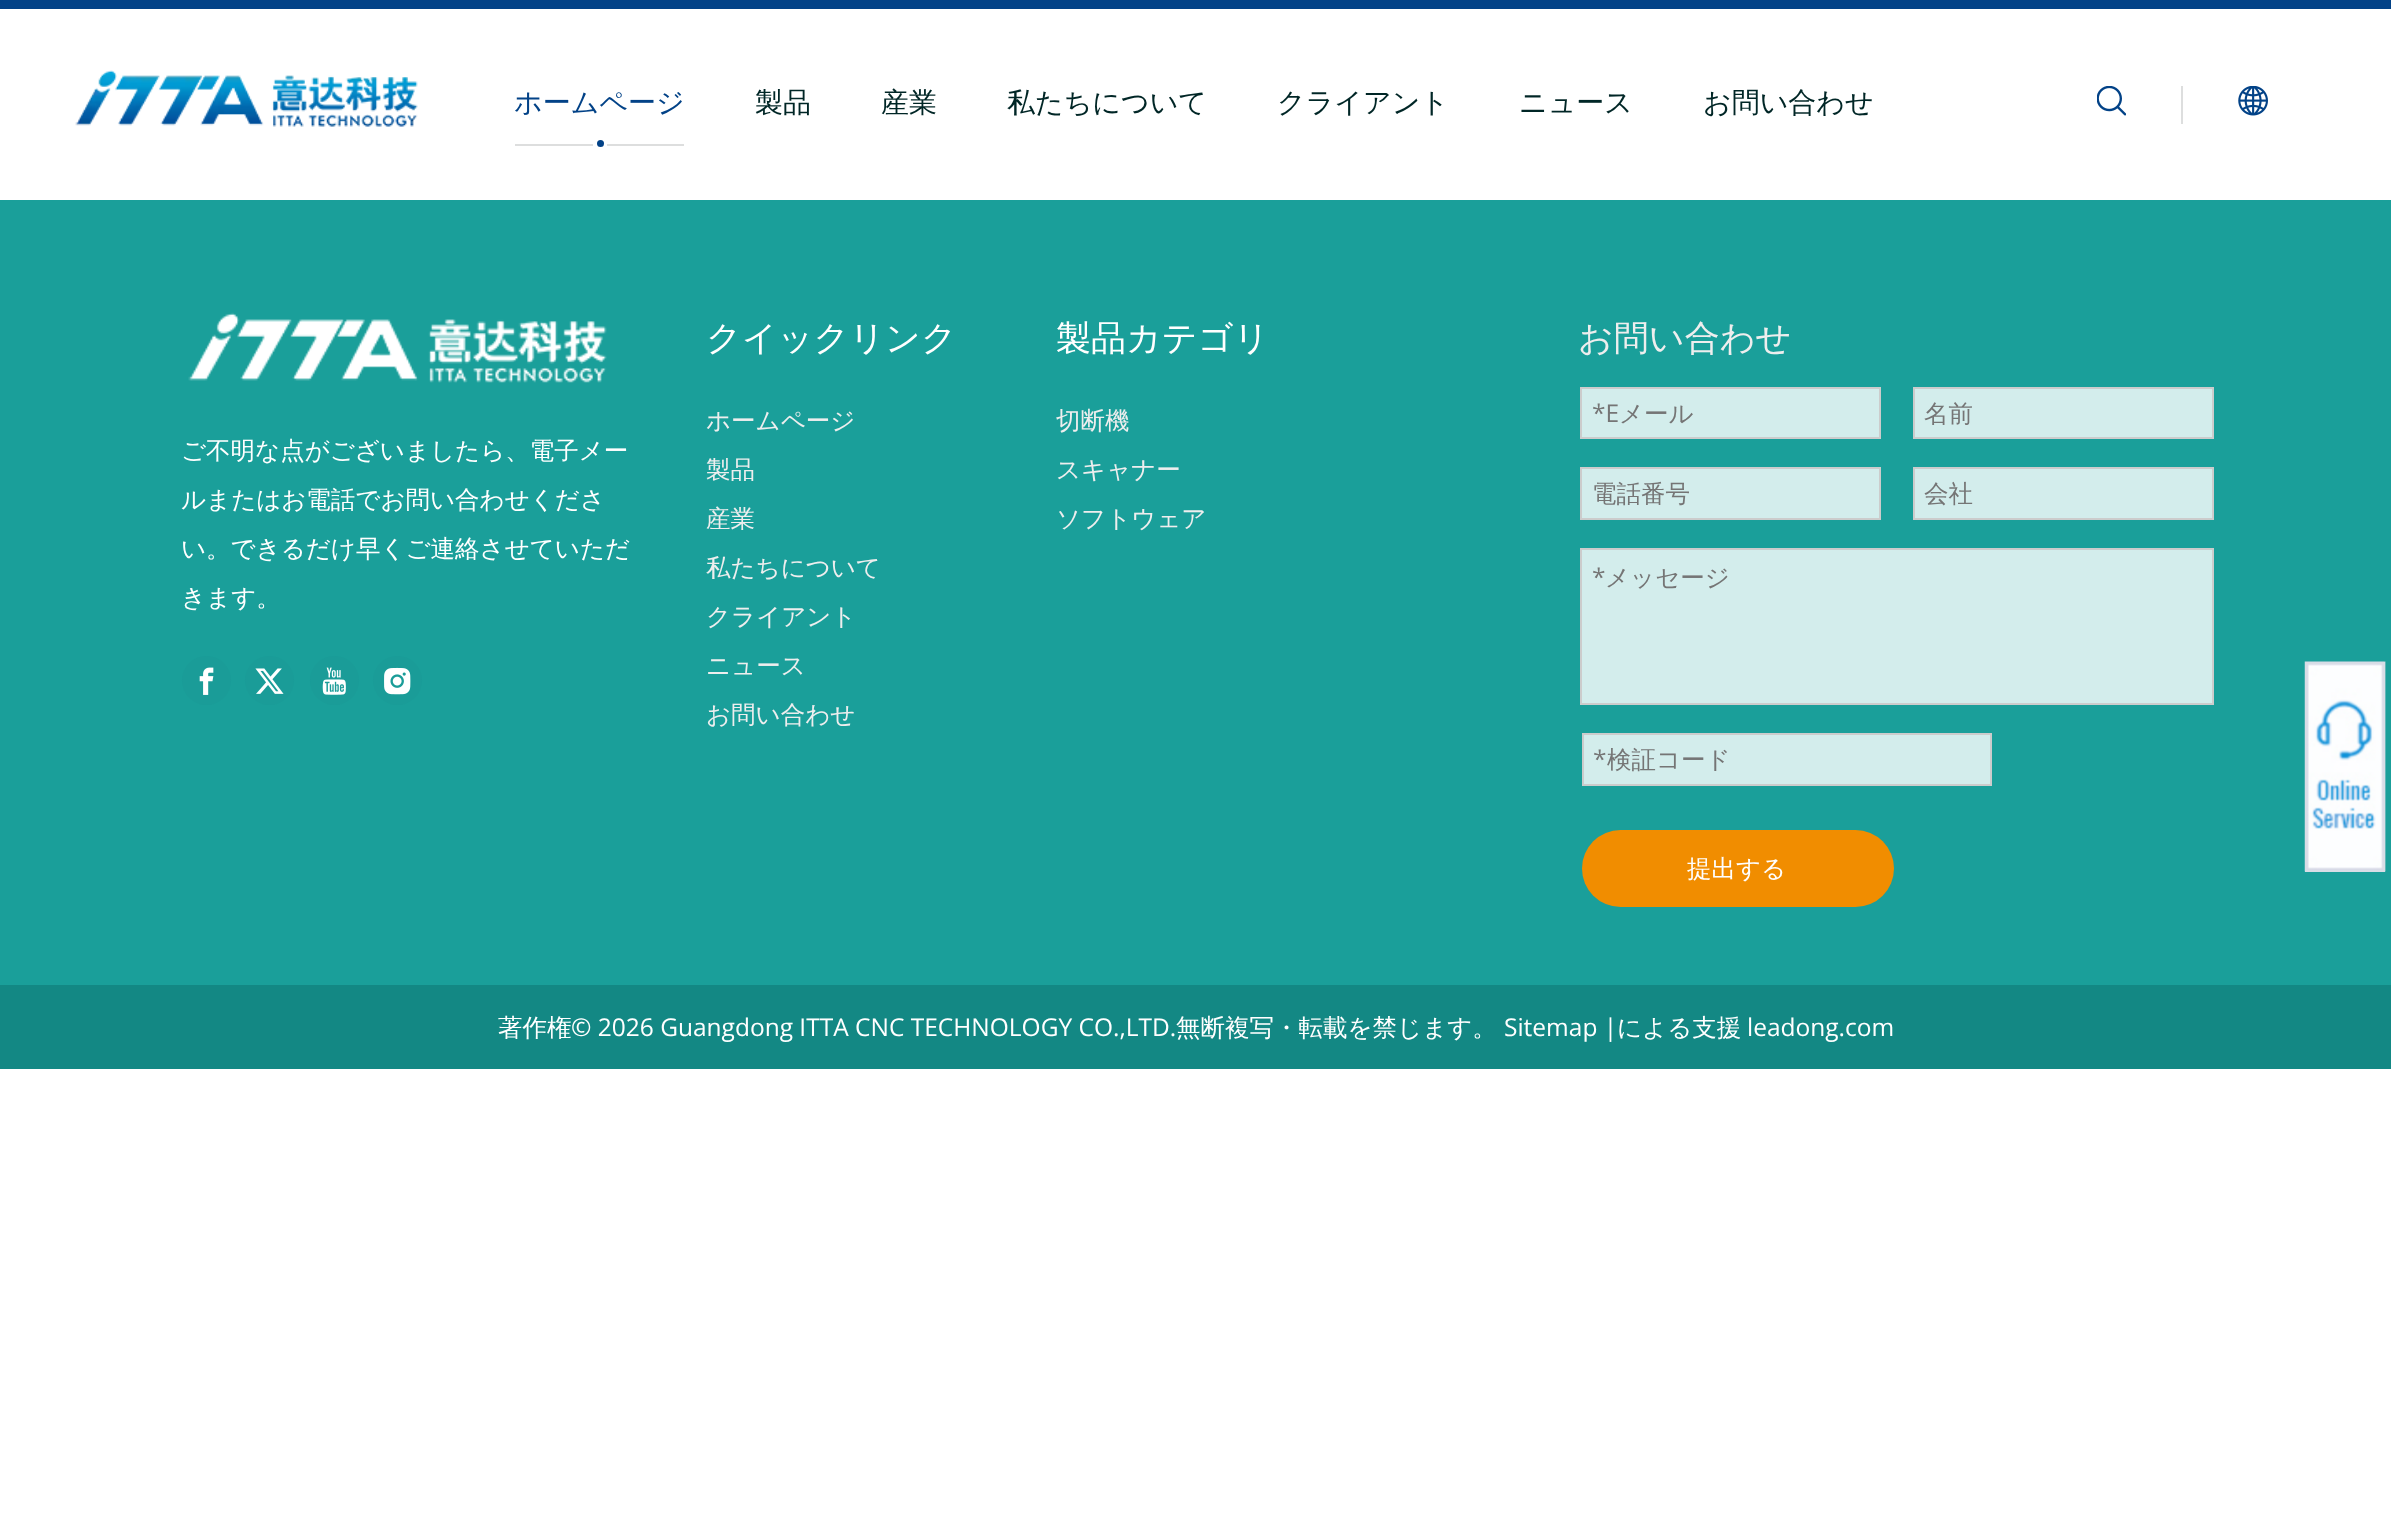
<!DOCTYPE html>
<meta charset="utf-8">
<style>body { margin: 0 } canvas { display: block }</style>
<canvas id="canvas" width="2391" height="1532"></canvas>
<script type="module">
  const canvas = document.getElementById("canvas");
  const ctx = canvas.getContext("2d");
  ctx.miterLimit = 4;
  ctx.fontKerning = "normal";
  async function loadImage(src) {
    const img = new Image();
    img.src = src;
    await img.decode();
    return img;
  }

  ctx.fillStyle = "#ffffff";
  ctx.fillRect(0, 0, 2391, 1532);
  ctx.fillStyle = "#024287";
  ctx.fillRect(0, 0, 2391, 9);
  ctx.drawImage(await loadImage("img1.png"), 75, 70, 343, 57);
  ctx.font = "500 28px WenQuanYi Zen Hei";
  ctx.fillText("ホームページ", 514, 112);
  ctx.fillStyle = "#dddede";
  ctx.fillRect(515, 144, 78, 2);
  ctx.fillStyle = "#024287";
  ctx.beginPath();
  ctx.arc(600.5, 143.5, 3.5, 0, Math.PI * 2);
  ctx.fill();
  ctx.fillStyle = "#dddede";
  ctx.fillRect(607, 144, 77, 2);
  ctx.fillStyle = "#002626";
  ctx.fillText("製品", 755, 112);
  ctx.fillText("産業", 881, 112);
  ctx.fillText("私たちについて", 1007, 112);
  ctx.fillText("クライアント", 1277, 112);
  ctx.fillText("ニュース", 1519, 112);
  ctx.fillText("お問い合わせ", 1703, 112);
  ctx.fillStyle = "#dddede";
  ctx.fillRect(2181, 86, 2, 38);
  ctx.drawImage(await loadImage("img2.png"), 2097, 86, 29, 30);
  ctx.drawImage(await loadImage("img3.png"), 2238, 86, 30, 30);
  ctx.fillStyle = "#1a9f9a";
  ctx.fillRect(0, 200, 2391, 785);
  ctx.drawImage(await loadImage("img4.png"), 188, 312, 419, 71);
  ctx.font = "500 24.5px WenQuanYi Zen Hei";
  ctx.fillStyle = "#ffffff";
  ctx.fillText("ご不明な点がございましたら、電子メー", 181, 459);
  ctx.fillText("ルまたはお電話でお問い合わせくださ", 181, 508);
  ctx.fillText("い。できるだけ早くご連絡させていただ", 181, 557);
  ctx.fillText("きます。", 181, 606);
  ctx.fillStyle = "#1a9c98";
  ctx.beginPath();
  ctx.arc(206.5, 680.5, 24.5, 0, Math.PI * 2);
  ctx.fill();
  ctx.drawImage(await loadImage("img5.png"), 199, 667, 15, 28);
  ctx.beginPath();
  ctx.arc(269.5, 680.5, 24.5, 0, Math.PI * 2);
  ctx.fill();
  ctx.drawImage(await loadImage("img6.png"), 255, 668, 29, 26);
  ctx.beginPath();
  ctx.arc(334.5, 680.5, 24.5, 0, Math.PI * 2);
  ctx.fill();
  ctx.drawImage(await loadImage("img7.png"), 322, 667, 24, 28);
  ctx.beginPath();
  ctx.arc(397.5, 680.5, 24.5, 0, Math.PI * 2);
  ctx.fill();
  ctx.drawImage(await loadImage("img8.png"), 384, 667, 27, 28);
  ctx.drawImage(await loadImage("img9.png"), 2304, 661, 82, 211);
  ctx.strokeStyle = "#d8dde6";
  ctx.lineWidth = 2;
  ctx.strokeRect(2306, 663, 78, 208);
  ctx.font = "500 35px WenQuanYi Zen Hei";
  ctx.fillStyle = "#ffffff";
  ctx.fillText("クイックリンク", 706, 350);
  ctx.font = "500 24.5px WenQuanYi Zen Hei";
  ctx.fillStyle = "#eeeeee";
  ctx.fillText("ホームページ", 706, 429);
  ctx.fillText("製品", 706, 478);
  ctx.fillText("産業", 706, 527);
  ctx.fillText("私たちについて", 706, 576);
  ctx.fillText("クライアント", 706, 625);
  ctx.fillText("ニュース", 706, 674);
  ctx.fillText("お問い合わせ", 706, 723);
  ctx.font = "500 35px WenQuanYi Zen Hei";
  ctx.fillStyle = "#ffffff";
  ctx.fillText("製品カテゴリ", 1056, 350);
  ctx.font = "500 24.5px WenQuanYi Zen Hei";
  ctx.fillStyle = "#eeeeee";
  ctx.fillText("切断機", 1056, 429);
  ctx.fillText("スキャナー", 1056, 478);
  ctx.fillText("ソフトウェア", 1056, 527);
  ctx.font = "500 35px WenQuanYi Zen Hei";
  ctx.fillText("お問い合わせ", 1578, 350);
  ctx.fillStyle = "#d3edec";
  ctx.beginPath();
  ctx.rect(1581, 388, 299, 50);
  ctx.fill();
  ctx.strokeStyle = "#cccccc";
  ctx.stroke();
  ctx.font = "24.5px Open Sans";
  ctx.fillStyle = "#757575";
  ctx.fillText("*E", 1592, 422);
  ctx.font = "500 24.5px WenQuanYi Zen Hei";
  ctx.fillText("メール", 1619, 422);
  ctx.fillStyle = "#d3edec";
  ctx.beginPath();
  ctx.rect(1914, 388, 299, 50);
  ctx.fill();
  ctx.stroke();
  ctx.fillStyle = "#757575";
  ctx.fillText("名前", 1924, 422);
  ctx.fillStyle = "#d3edec";
  ctx.beginPath();
  ctx.rect(1581, 468, 299, 51);
  ctx.fill();
  ctx.stroke();
  ctx.fillStyle = "#757575";
  ctx.fillText("電話番号", 1592, 502);
  ctx.fillStyle = "#d3edec";
  ctx.beginPath();
  ctx.rect(1914, 468, 299, 51);
  ctx.fill();
  ctx.stroke();
  ctx.fillStyle = "#757575";
  ctx.fillText("会社", 1924, 502);
  ctx.fillStyle = "#d3edec";
  ctx.beginPath();
  ctx.rect(1581, 549, 632, 155);
  ctx.fill();
  ctx.stroke();
  ctx.font = "24.5px Open Sans";
  ctx.fillStyle = "#757575";
  ctx.fillText("*", 1592, 586);
  ctx.font = "500 24.5px WenQuanYi Zen Hei";
  ctx.fillText("メッセージ", 1605, 586);
  ctx.fillStyle = "#d3edec";
  ctx.beginPath();
  ctx.rect(1583, 734, 408, 51);
  ctx.fill();
  ctx.stroke();
  ctx.font = "24.5px Open Sans";
  ctx.fillStyle = "#757575";
  ctx.fillText("*", 1593, 768);
  ctx.font = "500 24.5px WenQuanYi Zen Hei";
  ctx.fillText("検証コード", 1607, 768);
  ctx.fillStyle = "#f18d00";
  ctx.beginPath();
  ctx.roundRect(1582, 830, 312, 77, 38.5);
  ctx.fill();
  ctx.fillStyle = "#ffffff";
  ctx.fillText("提出する", 1687, 877);
  ctx.fillStyle = "#138884";
  ctx.fillRect(0, 985, 2391, 84);
  ctx.fillStyle = "#ffffff";
  ctx.fillText("著作権", 498, 1036);
  ctx.font = "24.5px Open Sans";
  ctx.fillText("© 2026 Guangdong ITTA CNC TECHNOLOGY CO.,LTD.", 571, 1036);
  ctx.font = "500 24.5px WenQuanYi Zen Hei";
  ctx.fillText("無断複写・転載を禁じます。", 1176, 1036);
  ctx.font = "24.5px Open Sans";
  ctx.fillText("Sitemap |", 1504, 1036);
  ctx.font = "500 24.5px WenQuanYi Zen Hei";
  ctx.fillText("による支援", 1617, 1036);
  ctx.font = "24.5px Open Sans";
  ctx.fillText("leadong.com", 1747, 1036);
</script>
